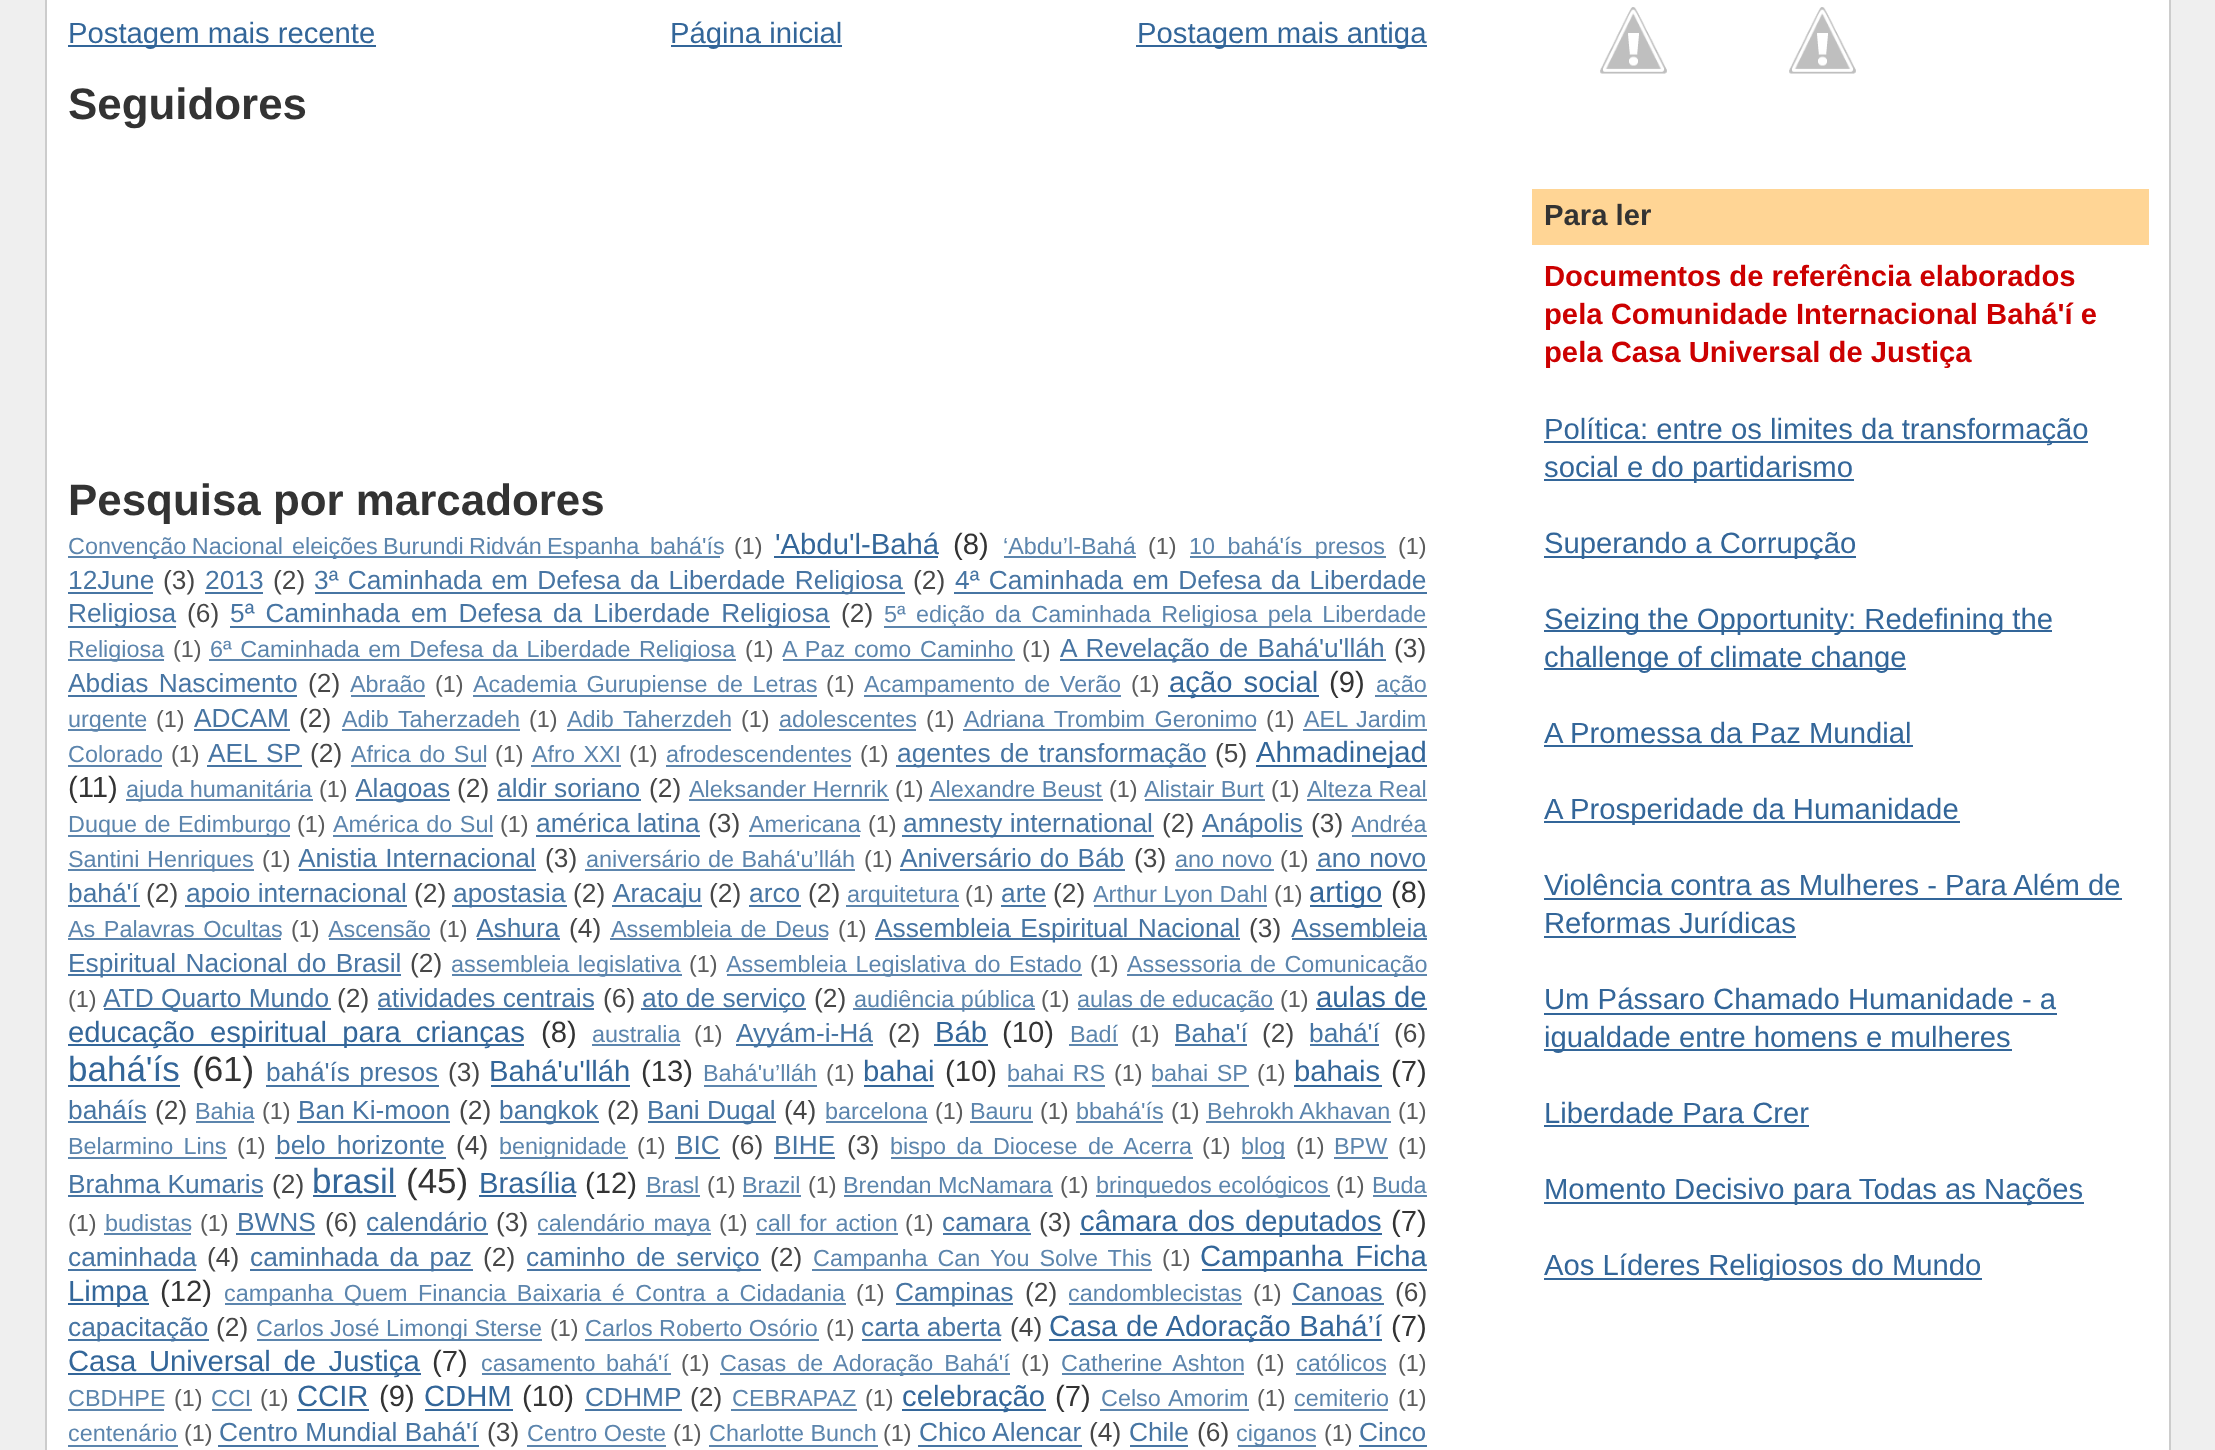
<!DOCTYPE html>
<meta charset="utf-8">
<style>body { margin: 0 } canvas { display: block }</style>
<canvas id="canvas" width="2215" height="1450"></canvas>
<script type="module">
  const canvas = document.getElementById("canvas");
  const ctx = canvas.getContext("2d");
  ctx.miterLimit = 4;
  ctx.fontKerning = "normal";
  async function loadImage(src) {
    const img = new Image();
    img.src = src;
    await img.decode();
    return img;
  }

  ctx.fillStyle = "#efefef";
  ctx.fillRect(0, 0, 2215, 1450);
  ctx.fillStyle = "#ffffff";
  ctx.fillRect(47, 0, 2122, 1450);
  ctx.fillStyle = "#cccccc";
  ctx.fillRect(2169, 0, 2, 1450);
  ctx.fillRect(45, 0, 2, 1450);
  ctx.fillStyle = "#336699";
  ctx.fillRect(68, 45, 308, 2);
  ctx.font = "29.25px Liberation Sans";
  ctx.fillText("Postagem mais recente", 68, 43);
  ctx.fillRect(671, 45, 171, 2);
  ctx.fillText("Página inicial", 670, 43);
  ctx.fillRect(1136, 45, 291, 2);
  ctx.fillText("Postagem mais antiga", 1137, 43);
  ctx.font = "bold 43.9px Liberation Sans";
  ctx.fillStyle = "#333333";
  ctx.fillText("Seguidores", 68, 119);
  ctx.fillText("Pesquisa por marcadores", 68, 515);
  ctx.fillStyle = "#5c85ad";
  ctx.fillRect(68, 556, 652, 2);
  ctx.wordSpacing = "-1px";
  ctx.font = "23.4px Liberation Sans";
  ctx.fillText("Convenção Nacional", 68, 554);
  ctx.wordSpacing = "0px";
  ctx.fillText("eleições", 292, 554);
  ctx.fillText("Burundi", 383, 554);
  ctx.fillText("Ridván", 469, 554);
  ctx.fillText("Espanha", 547, 554);
  ctx.fillText("bahá'ís", 650, 554);
  ctx.fillStyle = "#5c5c5c";
  ctx.fillText("(1)", 734, 554);
  ctx.font = "29.25px Liberation Sans";
  ctx.fillStyle = "#336699";
  ctx.fillText("'Abdu'l-Bahá", 775, 554);
  ctx.fillRect(774, 556, 164, 2);
  ctx.fillStyle = "#333333";
  ctx.fillText("(8)", 953, 554);
  ctx.font = "23.4px Liberation Sans";
  ctx.fillStyle = "#5c85ad";
  ctx.fillText("‘Abdu’l-Bahá", 1003, 554);
  ctx.fillRect(1004, 556, 132, 2);
  ctx.fillStyle = "#5c5c5c";
  ctx.fillText("(1)", 1148, 554);
  ctx.fillStyle = "#5c85ad";
  ctx.fillRect(1190, 556, 196, 2);
  ctx.wordSpacing = "6px";
  ctx.fillText("10 bahá'ís presos", 1189, 554);
  ctx.wordSpacing = "0px";
  ctx.fillStyle = "#5c5c5c";
  ctx.fillText("(1)", 1398, 554);
  ctx.font = "26.3px Liberation Sans";
  ctx.fillStyle = "#4775a3";
  ctx.fillText("12June", 68, 589);
  ctx.fillRect(68, 592, 85, 2);
  ctx.fillStyle = "#474747";
  ctx.fillText("(3)", 163, 589);
  ctx.fillStyle = "#4775a3";
  ctx.fillText("2013", 205, 589);
  ctx.fillRect(205, 592, 58, 2);
  ctx.fillStyle = "#474747";
  ctx.fillText("(2)", 273, 589);
  ctx.fillStyle = "#4775a3";
  ctx.fillRect(315, 592, 590, 2);
  ctx.wordSpacing = "2px";
  ctx.fillText("3ª Caminhada em Defesa da Liberdade Religiosa", 314, 589);
  ctx.wordSpacing = "0px";
  ctx.fillStyle = "#474747";
  ctx.fillText("(2)", 913, 589);
  ctx.wordSpacing = "2px";
  ctx.fillStyle = "#4775a3";
  ctx.fillText("4ª Caminhada em Defesa da Liberdade", 955, 589);
  ctx.fillRect(954, 592, 473, 2);
  ctx.fillRect(68, 626, 108, 2);
  ctx.wordSpacing = "0px";
  ctx.fillText("Religiosa", 68, 622);
  ctx.fillStyle = "#474747";
  ctx.fillText("(6)", 187, 622);
  ctx.fillStyle = "#4775a3";
  ctx.fillRect(230, 626, 600, 2);
  ctx.wordSpacing = "3.75px";
  ctx.fillText("5ª Caminhada em Defesa da Liberdade Religiosa", 230, 622);
  ctx.wordSpacing = "0px";
  ctx.fillStyle = "#474747";
  ctx.fillText("(2)", 841, 622);
  ctx.fillStyle = "#5c85ad";
  ctx.fillRect(884, 626, 543, 2);
  ctx.wordSpacing = "3.75px";
  ctx.font = "23.4px Liberation Sans";
  ctx.fillText("5ª edição da Caminhada Religiosa pela Liberdade", 884, 622);
  ctx.fillRect(68, 659, 96, 2);
  ctx.wordSpacing = "0px";
  ctx.fillText("Religiosa", 68, 657);
  ctx.fillStyle = "#5c5c5c";
  ctx.fillText("(1)", 173, 657);
  ctx.fillStyle = "#5c85ad";
  ctx.fillRect(209, 659, 527, 2);
  ctx.wordSpacing = "2px";
  ctx.fillText("6ª Caminhada em Defesa da Liberdade Religiosa", 210, 657);
  ctx.wordSpacing = "0px";
  ctx.fillStyle = "#5c5c5c";
  ctx.fillText("(1)", 745, 657);
  ctx.wordSpacing = "2px";
  ctx.fillStyle = "#5c85ad";
  ctx.fillText("A Paz", 782, 657);
  ctx.wordSpacing = "0px";
  ctx.fillText("como", 854, 657);
  ctx.fillRect(783, 659, 232, 2);
  ctx.fillText("Caminho", 920, 657);
  ctx.fillStyle = "#5c5c5c";
  ctx.fillText("(1)", 1022, 657);
  ctx.fillStyle = "#4775a3";
  ctx.fillRect(1060, 659, 326, 2);
  ctx.wordSpacing = "2px";
  ctx.font = "26.3px Liberation Sans";
  ctx.fillText("A Revelação de Bahá'u'lláh", 1060, 657);
  ctx.wordSpacing = "0px";
  ctx.fillStyle = "#474747";
  ctx.fillText("(3)", 1394, 657);
  ctx.wordSpacing = "3px";
  ctx.fillStyle = "#4775a3";
  ctx.fillText("Abdias Nascimento", 68, 692);
  ctx.fillRect(68, 695, 229, 2);
  ctx.wordSpacing = "0px";
  ctx.fillStyle = "#474747";
  ctx.fillText("(2)", 308, 692);
  ctx.font = "23.4px Liberation Sans";
  ctx.fillStyle = "#5c85ad";
  ctx.fillText("Abraão", 350, 692);
  ctx.fillRect(351, 695, 74, 2);
  ctx.fillStyle = "#5c5c5c";
  ctx.fillText("(1)", 435, 692);
  ctx.fillStyle = "#5c85ad";
  ctx.fillRect(473, 695, 344, 2);
  ctx.wordSpacing = "3px";
  ctx.fillText("Academia Gurupiense de Letras", 473, 692);
  ctx.wordSpacing = "0px";
  ctx.fillStyle = "#5c5c5c";
  ctx.fillText("(1)", 826, 692);
  ctx.fillStyle = "#5c85ad";
  ctx.fillRect(864, 695, 257, 2);
  ctx.wordSpacing = "3px";
  ctx.fillText("Acampamento de Verão", 864, 692);
  ctx.wordSpacing = "0px";
  ctx.fillStyle = "#5c5c5c";
  ctx.fillText("(1)", 1131, 692);
  ctx.fillStyle = "#336699";
  ctx.fillRect(1168, 695, 151, 2);
  ctx.wordSpacing = "3px";
  ctx.font = "29.25px Liberation Sans";
  ctx.fillText("ação social", 1169, 692);
  ctx.wordSpacing = "0px";
  ctx.fillStyle = "#333333";
  ctx.fillText("(9)", 1329, 692);
  ctx.fillStyle = "#5c85ad";
  ctx.fillRect(1375, 695, 52, 2);
  ctx.font = "23.4px Liberation Sans";
  ctx.fillText("ação", 1376, 692);
  ctx.fillRect(68, 729, 78, 2);
  ctx.fillText("urgente", 68, 727);
  ctx.fillStyle = "#5c5c5c";
  ctx.fillText("(1)", 156, 727);
  ctx.font = "26.3px Liberation Sans";
  ctx.fillStyle = "#4775a3";
  ctx.fillText("ADCAM", 194, 727);
  ctx.fillRect(194, 729, 96, 2);
  ctx.fillStyle = "#474747";
  ctx.fillText("(2)", 299, 727);
  ctx.wordSpacing = "3px";
  ctx.font = "23.4px Liberation Sans";
  ctx.fillStyle = "#5c85ad";
  ctx.fillText("Adib Taherzadeh", 342, 727);
  ctx.fillRect(342, 729, 178, 2);
  ctx.wordSpacing = "0px";
  ctx.fillStyle = "#5c5c5c";
  ctx.fillText("(1)", 529, 727);
  ctx.wordSpacing = "3px";
  ctx.fillStyle = "#5c85ad";
  ctx.fillText("Adib Taherzdeh", 567, 727);
  ctx.fillRect(567, 729, 164, 2);
  ctx.wordSpacing = "0px";
  ctx.fillStyle = "#5c5c5c";
  ctx.fillText("(1)", 741, 727);
  ctx.fillStyle = "#5c85ad";
  ctx.fillText("adolescentes", 779, 727);
  ctx.fillRect(779, 729, 137, 2);
  ctx.fillStyle = "#5c5c5c";
  ctx.fillText("(1)", 926, 727);
  ctx.wordSpacing = "3px";
  ctx.fillStyle = "#5c85ad";
  ctx.fillText("Adriana Trombim Geronimo", 964, 727);
  ctx.fillRect(963, 729, 293, 2);
  ctx.wordSpacing = "0px";
  ctx.fillStyle = "#5c5c5c";
  ctx.fillText("(1)", 1266, 727);
  ctx.fillStyle = "#5c85ad";
  ctx.fillText("AEL", 1304, 727);
  ctx.fillText("Jardim", 1356, 727);
  ctx.fillRect(1303, 729, 124, 2);
  ctx.fillText("Colorado", 68, 762);
  ctx.fillRect(68, 765, 94, 2);
  ctx.fillStyle = "#5c5c5c";
  ctx.fillText("(1)", 171, 762);
  ctx.wordSpacing = "2px";
  ctx.font = "26.3px Liberation Sans";
  ctx.fillStyle = "#4775a3";
  ctx.fillText("AEL SP", 208, 762);
  ctx.fillRect(207, 765, 95, 2);
  ctx.wordSpacing = "0px";
  ctx.fillStyle = "#474747";
  ctx.fillText("(2)", 310, 762);
  ctx.wordSpacing = "2px";
  ctx.font = "23.4px Liberation Sans";
  ctx.fillStyle = "#5c85ad";
  ctx.fillText("Africa do Sul", 351, 762);
  ctx.fillRect(351, 765, 135, 2);
  ctx.wordSpacing = "0px";
  ctx.fillStyle = "#5c5c5c";
  ctx.fillText("(1)", 495, 762);
  ctx.wordSpacing = "2px";
  ctx.fillStyle = "#5c85ad";
  ctx.fillText("Afro XXI", 532, 762);
  ctx.fillRect(531, 765, 90, 2);
  ctx.wordSpacing = "0px";
  ctx.fillStyle = "#5c5c5c";
  ctx.fillText("(1)", 629, 762);
  ctx.fillStyle = "#5c85ad";
  ctx.fillText("afrodescendentes", 666, 762);
  ctx.fillRect(666, 765, 185, 2);
  ctx.fillStyle = "#5c5c5c";
  ctx.fillText("(1)", 860, 762);
  ctx.fillStyle = "#4775a3";
  ctx.fillRect(896, 765, 310, 2);
  ctx.wordSpacing = "2px";
  ctx.font = "26.3px Liberation Sans";
  ctx.fillText("agentes de transformação", 897, 762);
  ctx.wordSpacing = "0px";
  ctx.fillStyle = "#474747";
  ctx.fillText("(5)", 1215, 762);
  ctx.fillStyle = "#336699";
  ctx.fillRect(1256, 765, 171, 2);
  ctx.font = "29.25px Liberation Sans";
  ctx.fillText("Ahmadinejad", 1256, 762);
  ctx.fillStyle = "#333333";
  ctx.fillText("(11)", 68, 797);
  ctx.fillStyle = "#5c85ad";
  ctx.fillRect(126, 799, 187, 2);
  ctx.font = "23.4px Liberation Sans";
  ctx.fillText("ajuda humanitária", 126, 797);
  ctx.fillStyle = "#5c5c5c";
  ctx.fillText("(1)", 319, 797);
  ctx.fillStyle = "#4775a3";
  ctx.fillRect(356, 799, 94, 2);
  ctx.font = "26.3px Liberation Sans";
  ctx.fillText("Alagoas", 355, 797);
  ctx.fillStyle = "#474747";
  ctx.fillText("(2)", 457, 797);
  ctx.fillStyle = "#4775a3";
  ctx.fillText("aldir soriano", 497, 797);
  ctx.fillRect(497, 799, 144, 2);
  ctx.fillStyle = "#474747";
  ctx.fillText("(2)", 649, 797);
  ctx.font = "23.4px Liberation Sans";
  ctx.fillStyle = "#5c85ad";
  ctx.fillText("Aleksander Hernrik", 689, 797);
  ctx.fillRect(689, 799, 200, 2);
  ctx.fillStyle = "#5c5c5c";
  ctx.fillText("(1)", 895, 797);
  ctx.fillStyle = "#5c85ad";
  ctx.fillText("Alexandre Beust", 930, 797);
  ctx.fillRect(929, 799, 174, 2);
  ctx.fillStyle = "#5c5c5c";
  ctx.fillText("(1)", 1109, 797);
  ctx.fillStyle = "#5c85ad";
  ctx.fillText("Alistair Burt", 1144, 797);
  ctx.fillRect(1145, 799, 120, 2);
  ctx.fillStyle = "#5c5c5c";
  ctx.fillText("(1)", 1271, 797);
  ctx.fillStyle = "#5c85ad";
  ctx.fillText("Alteza Real", 1307, 797);
  ctx.fillRect(1307, 799, 120, 2);
  ctx.fillRect(68, 835, 222, 2);
  ctx.wordSpacing = "1px";
  ctx.fillText("Duque de Edimburgo", 68, 832);
  ctx.wordSpacing = "0px";
  ctx.fillStyle = "#5c5c5c";
  ctx.fillText("(1)", 297, 832);
  ctx.wordSpacing = "1px";
  ctx.fillStyle = "#5c85ad";
  ctx.fillText("América do Sul", 333, 832);
  ctx.fillRect(333, 835, 160, 2);
  ctx.wordSpacing = "0px";
  ctx.fillStyle = "#5c5c5c";
  ctx.fillText("(1)", 500, 832);
  ctx.font = "26.3px Liberation Sans";
  ctx.fillStyle = "#4775a3";
  ctx.fillText("américa latina", 536, 832);
  ctx.fillRect(536, 835, 164, 2);
  ctx.fillStyle = "#474747";
  ctx.fillText("(3)", 708, 832);
  ctx.font = "23.4px Liberation Sans";
  ctx.fillStyle = "#5c85ad";
  ctx.fillText("Americana", 749, 832);
  ctx.fillRect(749, 835, 111, 2);
  ctx.fillStyle = "#5c5c5c";
  ctx.fillText("(1)", 868, 832);
  ctx.fillStyle = "#4775a3";
  ctx.fillRect(902, 835, 252, 2);
  ctx.font = "26.3px Liberation Sans";
  ctx.fillText("amnesty international", 903, 832);
  ctx.fillStyle = "#474747";
  ctx.fillText("(2)", 1162, 832);
  ctx.fillStyle = "#4775a3";
  ctx.fillRect(1202, 835, 101, 2);
  ctx.fillText("Anápolis", 1202, 832);
  ctx.fillStyle = "#474747";
  ctx.fillText("(3)", 1311, 832);
  ctx.font = "23.4px Liberation Sans";
  ctx.fillStyle = "#5c85ad";
  ctx.fillText("Andréa", 1351, 832);
  ctx.fillRect(1352, 835, 75, 2);
  ctx.fillRect(68, 869, 186, 2);
  ctx.wordSpacing = "1px";
  ctx.fillText("Santini Henriques", 68, 867);
  ctx.wordSpacing = "0px";
  ctx.fillStyle = "#5c5c5c";
  ctx.fillText("(1)", 262, 867);
  ctx.wordSpacing = "1px";
  ctx.font = "26.3px Liberation Sans";
  ctx.fillStyle = "#4775a3";
  ctx.fillText("Anistia Internacional", 298, 867);
  ctx.fillRect(299, 869, 237, 2);
  ctx.wordSpacing = "0px";
  ctx.fillStyle = "#474747";
  ctx.fillText("(3)", 545, 867);
  ctx.wordSpacing = "1px";
  ctx.font = "23.4px Liberation Sans";
  ctx.fillStyle = "#5c85ad";
  ctx.fillText("aniversário de Bahá'u’lláh", 586, 867);
  ctx.fillRect(585, 869, 270, 2);
  ctx.wordSpacing = "0px";
  ctx.fillStyle = "#5c5c5c";
  ctx.fillText("(1)", 864, 867);
  ctx.wordSpacing = "1px";
  ctx.font = "26.3px Liberation Sans";
  ctx.fillStyle = "#4775a3";
  ctx.fillText("Aniversário do Báb", 900, 867);
  ctx.fillRect(900, 869, 225, 2);
  ctx.wordSpacing = "0px";
  ctx.fillStyle = "#474747";
  ctx.fillText("(3)", 1134, 867);
  ctx.wordSpacing = "1px";
  ctx.font = "23.4px Liberation Sans";
  ctx.fillStyle = "#5c85ad";
  ctx.fillText("ano novo", 1175, 867);
  ctx.fillRect(1175, 869, 99, 2);
  ctx.wordSpacing = "0px";
  ctx.fillStyle = "#5c5c5c";
  ctx.fillText("(1)", 1280, 867);
  ctx.wordSpacing = "1px";
  ctx.font = "26.3px Liberation Sans";
  ctx.fillStyle = "#4775a3";
  ctx.fillText("ano novo", 1317, 867);
  ctx.fillRect(1316, 869, 111, 2);
  ctx.wordSpacing = "0px";
  ctx.fillText("bahá'í", 68, 902);
  ctx.fillRect(68, 905, 72, 2);
  ctx.fillStyle = "#474747";
  ctx.fillText("(2)", 146, 902);
  ctx.fillStyle = "#4775a3";
  ctx.fillRect(185, 905, 222, 2);
  ctx.fillText("apoio internacional", 186, 902);
  ctx.fillStyle = "#474747";
  ctx.fillText("(2)", 414, 902);
  ctx.fillStyle = "#4775a3";
  ctx.fillRect(452, 905, 115, 2);
  ctx.fillText("apostasia", 453, 902);
  ctx.fillStyle = "#474747";
  ctx.fillText("(2)", 573, 902);
  ctx.fillStyle = "#4775a3";
  ctx.fillRect(612, 905, 90, 2);
  ctx.fillText("Aracaju", 613, 902);
  ctx.fillStyle = "#474747";
  ctx.fillText("(2)", 709, 902);
  ctx.fillStyle = "#4775a3";
  ctx.fillText("arco", 749, 902);
  ctx.fillRect(749, 905, 52, 2);
  ctx.fillStyle = "#474747";
  ctx.fillText("(2)", 808, 902);
  ctx.fillStyle = "#5c85ad";
  ctx.fillRect(846, 905, 113, 2);
  ctx.font = "23.4px Liberation Sans";
  ctx.fillText("arquitetura", 847, 902);
  ctx.fillStyle = "#5c5c5c";
  ctx.fillText("(1)", 965, 902);
  ctx.font = "26.3px Liberation Sans";
  ctx.fillStyle = "#4775a3";
  ctx.fillText("arte", 1001, 902);
  ctx.fillRect(1001, 905, 45, 2);
  ctx.fillStyle = "#474747";
  ctx.fillText("(2)", 1053, 902);
  ctx.fillStyle = "#5c85ad";
  ctx.fillRect(1094, 905, 173, 2);
  ctx.font = "23.4px Liberation Sans";
  ctx.fillText("Arthur Lyon Dahl", 1093, 902);
  ctx.fillStyle = "#5c5c5c";
  ctx.fillText("(1)", 1274, 902);
  ctx.fillStyle = "#336699";
  ctx.fillRect(1310, 905, 72, 2);
  ctx.font = "29.25px Liberation Sans";
  ctx.fillText("artigo", 1309, 902);
  ctx.fillStyle = "#333333";
  ctx.fillText("(8)", 1391, 902);
  ctx.wordSpacing = "2px";
  ctx.font = "23.4px Liberation Sans";
  ctx.fillStyle = "#5c85ad";
  ctx.fillText("As Palavras Ocultas", 68, 937);
  ctx.fillRect(68, 938, 213, 2);
  ctx.wordSpacing = "0px";
  ctx.fillStyle = "#5c5c5c";
  ctx.fillText("(1)", 291, 937);
  ctx.fillStyle = "#5c85ad";
  ctx.fillText("Ascensão", 328, 937);
  ctx.fillRect(329, 938, 101, 2);
  ctx.fillStyle = "#5c5c5c";
  ctx.fillText("(1)", 439, 937);
  ctx.font = "26.3px Liberation Sans";
  ctx.fillStyle = "#4775a3";
  ctx.fillText("Ashura", 476, 937);
  ctx.fillRect(477, 938, 83, 2);
  ctx.fillStyle = "#474747";
  ctx.fillText("(4)", 569, 937);
  ctx.wordSpacing = "2px";
  ctx.font = "23.4px Liberation Sans";
  ctx.fillStyle = "#5c85ad";
  ctx.fillText("Assembleia de Deus", 611, 937);
  ctx.fillRect(610, 938, 218, 2);
  ctx.wordSpacing = "0px";
  ctx.fillStyle = "#5c5c5c";
  ctx.fillText("(1)", 838, 937);
  ctx.fillStyle = "#4775a3";
  ctx.fillRect(875, 938, 365, 2);
  ctx.wordSpacing = "2px";
  ctx.font = "26.3px Liberation Sans";
  ctx.fillText("Assembleia Espiritual Nacional", 875, 937);
  ctx.wordSpacing = "0px";
  ctx.fillStyle = "#474747";
  ctx.fillText("(3)", 1249, 937);
  ctx.fillStyle = "#4775a3";
  ctx.fillText("Assembleia", 1291, 937);
  ctx.fillRect(1292, 938, 135, 2);
  ctx.fillRect(68, 974, 333, 2);
  ctx.wordSpacing = "2px";
  ctx.fillText("Espiritual Nacional do Brasil", 68, 972);
  ctx.wordSpacing = "0px";
  ctx.fillStyle = "#474747";
  ctx.fillText("(2)", 410, 972);
  ctx.fillStyle = "#5c85ad";
  ctx.fillRect(452, 974, 230, 2);
  ctx.wordSpacing = "2px";
  ctx.font = "23.4px Liberation Sans";
  ctx.fillText("assembleia legislativa", 451, 972);
  ctx.wordSpacing = "0px";
  ctx.fillStyle = "#5c5c5c";
  ctx.fillText("(1)", 689, 972);
  ctx.fillStyle = "#5c85ad";
  ctx.fillRect(727, 974, 355, 2);
  ctx.wordSpacing = "2px";
  ctx.fillText("Assembleia Legislativa do Estado", 726, 972);
  ctx.wordSpacing = "0px";
  ctx.fillStyle = "#5c5c5c";
  ctx.fillText("(1)", 1090, 972);
  ctx.fillStyle = "#5c85ad";
  ctx.fillRect(1127, 974, 300, 2);
  ctx.wordSpacing = "2px";
  ctx.fillText("Assessoria de Comunicação", 1127, 972);
  ctx.wordSpacing = "0px";
  ctx.fillStyle = "#5c5c5c";
  ctx.fillText("(1)", 68, 1007);
  ctx.fillStyle = "#4775a3";
  ctx.fillRect(104, 1008, 227, 2);
  ctx.font = "26.3px Liberation Sans";
  ctx.fillText("ATD Quarto Mundo", 103, 1007);
  ctx.fillStyle = "#474747";
  ctx.fillText("(2)", 337, 1007);
  ctx.fillStyle = "#4775a3";
  ctx.fillText("atividades centrais", 377, 1007);
  ctx.fillRect(378, 1008, 216, 2);
  ctx.fillStyle = "#474747";
  ctx.fillText("(6)", 603, 1007);
  ctx.fillStyle = "#4775a3";
  ctx.fillRect(641, 1008, 165, 2);
  ctx.fillText("ato de serviço", 642, 1007);
  ctx.fillStyle = "#474747";
  ctx.fillText("(2)", 814, 1007);
  ctx.fillStyle = "#5c85ad";
  ctx.fillRect(853, 1008, 182, 2);
  ctx.font = "23.4px Liberation Sans";
  ctx.fillText("audiência pública", 854, 1007);
  ctx.fillStyle = "#5c5c5c";
  ctx.fillText("(1)", 1041, 1007);
  ctx.fillStyle = "#5c85ad";
  ctx.fillRect(1078, 1008, 196, 2);
  ctx.fillText("aulas de educação", 1077, 1007);
  ctx.fillStyle = "#5c5c5c";
  ctx.fillText("(1)", 1280, 1007);
  ctx.font = "29.25px Liberation Sans";
  ctx.fillStyle = "#336699";
  ctx.fillText("aulas de", 1316, 1007);
  ctx.fillRect(1316, 1008, 111, 2);
  ctx.fillRect(68, 1044, 456, 2);
  ctx.wordSpacing = "7px";
  ctx.fillText("educação espiritual para crianças", 68, 1042);
  ctx.wordSpacing = "0px";
  ctx.fillStyle = "#333333";
  ctx.fillText("(8)", 541, 1042);
  ctx.font = "23.4px Liberation Sans";
  ctx.fillStyle = "#5c85ad";
  ctx.fillText("australia", 592, 1042);
  ctx.fillRect(592, 1044, 88, 2);
  ctx.fillStyle = "#5c5c5c";
  ctx.fillText("(1)", 694, 1042);
  ctx.fillStyle = "#4775a3";
  ctx.fillRect(736, 1044, 137, 2);
  ctx.font = "26.3px Liberation Sans";
  ctx.fillText("Ayyám-i-Há", 736, 1042);
  ctx.fillStyle = "#474747";
  ctx.fillText("(2)", 888, 1042);
  ctx.font = "29.25px Liberation Sans";
  ctx.fillStyle = "#336699";
  ctx.fillText("Báb", 935, 1042);
  ctx.fillRect(934, 1044, 54, 2);
  ctx.fillStyle = "#333333";
  ctx.fillText("(10)", 1002, 1042);
  ctx.font = "23.4px Liberation Sans";
  ctx.fillStyle = "#5c85ad";
  ctx.fillText("Badí", 1070, 1042);
  ctx.fillRect(1069, 1044, 49, 2);
  ctx.fillStyle = "#5c5c5c";
  ctx.fillText("(1)", 1131, 1042);
  ctx.font = "26.3px Liberation Sans";
  ctx.fillStyle = "#4775a3";
  ctx.fillText("Baha'í", 1174, 1042);
  ctx.fillRect(1175, 1044, 72, 2);
  ctx.fillStyle = "#474747";
  ctx.fillText("(2)", 1262, 1042);
  ctx.fillStyle = "#4775a3";
  ctx.fillText("bahá'í", 1309, 1042);
  ctx.fillRect(1310, 1044, 69, 2);
  ctx.fillStyle = "#474747";
  ctx.fillText("(6)", 1394, 1042);
  ctx.font = "35px Liberation Sans";
  ctx.fillStyle = "#336699";
  ctx.fillText("bahá'ís", 68, 1081);
  ctx.fillRect(68, 1085, 112, 2);
  ctx.fillStyle = "#333333";
  ctx.fillText("(61)", 192, 1081);
  ctx.fillStyle = "#4775a3";
  ctx.fillRect(266, 1085, 173, 2);
  ctx.wordSpacing = "2px";
  ctx.font = "26.3px Liberation Sans";
  ctx.fillText("bahá'ís presos", 266, 1081);
  ctx.wordSpacing = "0px";
  ctx.fillStyle = "#474747";
  ctx.fillText("(3)", 448, 1081);
  ctx.font = "29.25px Liberation Sans";
  ctx.fillStyle = "#336699";
  ctx.fillText("Bahá'u'lláh", 489, 1081);
  ctx.fillRect(491, 1085, 139, 2);
  ctx.fillStyle = "#333333";
  ctx.fillText("(13)", 641, 1081);
  ctx.font = "23.4px Liberation Sans";
  ctx.fillStyle = "#5c85ad";
  ctx.fillText("Bahá'u’lláh", 703, 1081);
  ctx.fillRect(704, 1085, 113, 2);
  ctx.fillStyle = "#5c5c5c";
  ctx.fillText("(1)", 826, 1081);
  ctx.font = "29.25px Liberation Sans";
  ctx.fillStyle = "#336699";
  ctx.fillText("bahai", 863, 1081);
  ctx.fillRect(864, 1085, 70, 2);
  ctx.fillStyle = "#333333";
  ctx.fillText("(10)", 945, 1081);
  ctx.wordSpacing = "2px";
  ctx.font = "23.4px Liberation Sans";
  ctx.fillStyle = "#5c85ad";
  ctx.fillText("bahai RS", 1007, 1081);
  ctx.fillRect(1008, 1085, 97, 2);
  ctx.wordSpacing = "0px";
  ctx.fillStyle = "#5c5c5c";
  ctx.fillText("(1)", 1114, 1081);
  ctx.wordSpacing = "2px";
  ctx.fillStyle = "#5c85ad";
  ctx.fillText("bahai SP", 1151, 1081);
  ctx.fillRect(1152, 1085, 97, 2);
  ctx.wordSpacing = "0px";
  ctx.fillStyle = "#5c5c5c";
  ctx.fillText("(1)", 1257, 1081);
  ctx.font = "29.25px Liberation Sans";
  ctx.fillStyle = "#336699";
  ctx.fillText("bahais", 1294, 1081);
  ctx.fillRect(1294, 1085, 88, 2);
  ctx.fillStyle = "#333333";
  ctx.fillText("(7)", 1391, 1081);
  ctx.font = "26.3px Liberation Sans";
  ctx.fillStyle = "#4775a3";
  ctx.fillText("baháís", 68, 1119);
  ctx.fillRect(68, 1121, 78, 2);
  ctx.fillStyle = "#474747";
  ctx.fillText("(2)", 155, 1119);
  ctx.font = "23.4px Liberation Sans";
  ctx.fillStyle = "#5c85ad";
  ctx.fillText("Bahia", 195, 1119);
  ctx.fillRect(196, 1121, 58, 2);
  ctx.fillStyle = "#5c5c5c";
  ctx.fillText("(1)", 262, 1119);
  ctx.font = "26.3px Liberation Sans";
  ctx.fillStyle = "#4775a3";
  ctx.fillText("Ban Ki-moon", 298, 1119);
  ctx.fillRect(297, 1121, 153, 2);
  ctx.fillStyle = "#474747";
  ctx.fillText("(2)", 459, 1119);
  ctx.fillStyle = "#4775a3";
  ctx.fillRect(500, 1121, 99, 2);
  ctx.fillText("bangkok", 499, 1119);
  ctx.fillStyle = "#474747";
  ctx.fillText("(2)", 607, 1119);
  ctx.fillStyle = "#4775a3";
  ctx.fillRect(648, 1121, 128, 2);
  ctx.fillText("Bani Dugal", 647, 1119);
  ctx.fillStyle = "#474747";
  ctx.fillText("(4)", 784, 1119);
  ctx.font = "23.4px Liberation Sans";
  ctx.fillStyle = "#5c85ad";
  ctx.fillText("barcelona", 825, 1119);
  ctx.fillRect(826, 1121, 101, 2);
  ctx.fillStyle = "#5c5c5c";
  ctx.fillText("(1)", 935, 1119);
  ctx.fillStyle = "#5c85ad";
  ctx.fillText("Bauru", 970, 1119);
  ctx.fillRect(970, 1121, 63, 2);
  ctx.fillStyle = "#5c5c5c";
  ctx.fillText("(1)", 1040, 1119);
  ctx.fillStyle = "#5c85ad";
  ctx.fillText("bbahá'ís", 1076, 1119);
  ctx.fillRect(1076, 1121, 87, 2);
  ctx.fillStyle = "#5c5c5c";
  ctx.fillText("(1)", 1171, 1119);
  ctx.fillStyle = "#5c85ad";
  ctx.fillText("Behrokh Akhavan", 1207, 1119);
  ctx.fillRect(1206, 1121, 185, 2);
  ctx.fillStyle = "#5c5c5c";
  ctx.fillText("(1)", 1398, 1119);
  ctx.wordSpacing = "3.75px";
  ctx.fillStyle = "#5c85ad";
  ctx.fillText("Belarmino Lins", 68, 1154);
  ctx.fillRect(68, 1157, 159, 2);
  ctx.wordSpacing = "0px";
  ctx.fillStyle = "#5c5c5c";
  ctx.fillText("(1)", 237, 1154);
  ctx.wordSpacing = "3.75px";
  ctx.font = "26.3px Liberation Sans";
  ctx.fillStyle = "#4775a3";
  ctx.fillText("belo horizonte", 276, 1154);
  ctx.fillRect(275, 1157, 171, 2);
  ctx.wordSpacing = "0px";
  ctx.fillStyle = "#474747";
  ctx.fillText("(4)", 456, 1154);
  ctx.fillStyle = "#5c85ad";
  ctx.fillRect(500, 1157, 128, 2);
  ctx.font = "23.4px Liberation Sans";
  ctx.fillText("benignidade", 499, 1154);
  ctx.fillStyle = "#5c5c5c";
  ctx.fillText("(1)", 637, 1154);
  ctx.font = "26.3px Liberation Sans";
  ctx.fillStyle = "#4775a3";
  ctx.fillText("BIC", 676, 1154);
  ctx.fillRect(675, 1157, 45, 2);
  ctx.fillStyle = "#474747";
  ctx.fillText("(6)", 731, 1154);
  ctx.fillStyle = "#4775a3";
  ctx.fillText("BIHE", 774, 1154);
  ctx.fillRect(774, 1157, 61, 2);
  ctx.fillStyle = "#474747";
  ctx.fillText("(3)", 847, 1154);
  ctx.fillStyle = "#5c85ad";
  ctx.fillRect(891, 1157, 302, 2);
  ctx.wordSpacing = "4px";
  ctx.font = "23.4px Liberation Sans";
  ctx.fillText("bispo da Diocese de Acerra", 890, 1154);
  ctx.wordSpacing = "0px";
  ctx.fillStyle = "#5c5c5c";
  ctx.fillText("(1)", 1202, 1154);
  ctx.fillStyle = "#5c85ad";
  ctx.fillRect(1242, 1157, 43, 2);
  ctx.fillText("blog", 1241, 1154);
  ctx.fillStyle = "#5c5c5c";
  ctx.fillText("(1)", 1296, 1154);
  ctx.fillStyle = "#5c85ad";
  ctx.fillText("BPW", 1334, 1154);
  ctx.fillRect(1334, 1157, 54, 2);
  ctx.fillStyle = "#5c5c5c";
  ctx.fillText("(1)", 1398, 1154);
  ctx.font = "26.3px Liberation Sans";
  ctx.fillStyle = "#4775a3";
  ctx.fillText("Brahma Kumaris", 68, 1193);
  ctx.fillRect(68, 1195, 195, 2);
  ctx.fillStyle = "#474747";
  ctx.fillText("(2)", 272, 1193);
  ctx.font = "35px Liberation Sans";
  ctx.fillStyle = "#336699";
  ctx.fillText("brasil", 312, 1193);
  ctx.fillRect(313, 1195, 83, 2);
  ctx.fillStyle = "#333333";
  ctx.fillText("(45)", 406, 1193);
  ctx.font = "29.25px Liberation Sans";
  ctx.fillStyle = "#336699";
  ctx.fillText("Brasília", 479, 1193);
  ctx.fillRect(479, 1195, 97, 2);
  ctx.fillStyle = "#333333";
  ctx.fillText("(12)", 585, 1193);
  ctx.font = "23.4px Liberation Sans";
  ctx.fillStyle = "#5c85ad";
  ctx.fillText("Brasl", 646, 1193);
  ctx.fillRect(646, 1195, 54, 2);
  ctx.fillStyle = "#5c5c5c";
  ctx.fillText("(1)", 707, 1193);
  ctx.fillStyle = "#5c85ad";
  ctx.fillText("Brazil", 742, 1193);
  ctx.fillRect(743, 1195, 58, 2);
  ctx.fillStyle = "#5c5c5c";
  ctx.fillText("(1)", 808, 1193);
  ctx.fillStyle = "#5c85ad";
  ctx.fillText("Brendan McNamara", 843, 1193);
  ctx.fillRect(844, 1195, 209, 2);
  ctx.fillStyle = "#5c5c5c";
  ctx.fillText("(1)", 1060, 1193);
  ctx.fillStyle = "#5c85ad";
  ctx.fillRect(1096, 1195, 234, 2);
  ctx.fillText("brinquedos ecológicos", 1096, 1193);
  ctx.fillStyle = "#5c5c5c";
  ctx.fillText("(1)", 1336, 1193);
  ctx.fillStyle = "#5c85ad";
  ctx.fillText("Buda", 1372, 1193);
  ctx.fillRect(1373, 1195, 54, 2);
  ctx.fillStyle = "#5c5c5c";
  ctx.fillText("(1)", 68, 1231);
  ctx.fillStyle = "#5c85ad";
  ctx.fillText("budistas", 105, 1231);
  ctx.fillRect(104, 1233, 87, 2);
  ctx.fillStyle = "#5c5c5c";
  ctx.fillText("(1)", 200, 1231);
  ctx.font = "26.3px Liberation Sans";
  ctx.fillStyle = "#4775a3";
  ctx.fillText("BWNS", 237, 1231);
  ctx.fillRect(236, 1233, 79, 2);
  ctx.fillStyle = "#474747";
  ctx.fillText("(6)", 325, 1231);
  ctx.fillStyle = "#4775a3";
  ctx.fillText("calendário", 366, 1231);
  ctx.fillRect(367, 1233, 121, 2);
  ctx.fillStyle = "#474747";
  ctx.fillText("(3)", 496, 1231);
  ctx.fillStyle = "#5c85ad";
  ctx.fillRect(538, 1233, 173, 2);
  ctx.wordSpacing = "2px";
  ctx.font = "23.4px Liberation Sans";
  ctx.fillText("calendário maya", 537, 1231);
  ctx.wordSpacing = "0px";
  ctx.fillStyle = "#5c5c5c";
  ctx.fillText("(1)", 719, 1231);
  ctx.wordSpacing = "2px";
  ctx.fillStyle = "#5c85ad";
  ctx.fillText("call for action", 756, 1231);
  ctx.fillRect(756, 1233, 142, 2);
  ctx.wordSpacing = "0px";
  ctx.fillStyle = "#5c5c5c";
  ctx.fillText("(1)", 905, 1231);
  ctx.font = "26.3px Liberation Sans";
  ctx.fillStyle = "#4775a3";
  ctx.fillText("camara", 942, 1231);
  ctx.fillRect(943, 1233, 88, 2);
  ctx.fillStyle = "#474747";
  ctx.fillText("(3)", 1039, 1231);
  ctx.fillStyle = "#336699";
  ctx.fillRect(1080, 1233, 302, 2);
  ctx.wordSpacing = "2px";
  ctx.font = "29.25px Liberation Sans";
  ctx.fillText("câmara dos deputados", 1080, 1231);
  ctx.wordSpacing = "0px";
  ctx.fillStyle = "#333333";
  ctx.fillText("(7)", 1391, 1231);
  ctx.font = "26.3px Liberation Sans";
  ctx.fillStyle = "#4775a3";
  ctx.fillText("caminhada", 68, 1266);
  ctx.fillRect(68, 1269, 128, 2);
  ctx.fillStyle = "#474747";
  ctx.fillText("(4)", 207, 1266);
  ctx.fillStyle = "#4775a3";
  ctx.fillRect(250, 1269, 223, 2);
  ctx.wordSpacing = "3.5px";
  ctx.fillText("caminhada da paz", 250, 1266);
  ctx.wordSpacing = "0px";
  ctx.fillStyle = "#474747";
  ctx.fillText("(2)", 483, 1266);
  ctx.fillStyle = "#4775a3";
  ctx.fillRect(527, 1269, 234, 2);
  ctx.wordSpacing = "3.5px";
  ctx.fillText("caminho de serviço", 526, 1266);
  ctx.wordSpacing = "0px";
  ctx.fillStyle = "#474747";
  ctx.fillText("(2)", 770, 1266);
  ctx.fillStyle = "#5c85ad";
  ctx.fillRect(812, 1269, 340, 2);
  ctx.wordSpacing = "3.5px";
  ctx.font = "23.4px Liberation Sans";
  ctx.fillText("Campanha Can You Solve This", 813, 1266);
  ctx.wordSpacing = "0px";
  ctx.fillStyle = "#5c5c5c";
  ctx.fillText("(1)", 1162, 1266);
  ctx.fillStyle = "#336699";
  ctx.fillRect(1202, 1269, 225, 2);
  ctx.wordSpacing = "4px";
  ctx.font = "29.25px Liberation Sans";
  ctx.fillText("Campanha Ficha", 1200, 1266);
  ctx.fillRect(68, 1303, 81, 2);
  ctx.wordSpacing = "0px";
  ctx.fillText("Limpa", 68, 1301);
  ctx.fillStyle = "#333333";
  ctx.fillText("(12)", 160, 1301);
  ctx.fillStyle = "#5c85ad";
  ctx.fillRect(225, 1303, 621, 2);
  ctx.wordSpacing = "4px";
  ctx.font = "23.4px Liberation Sans";
  ctx.fillText("campanha Quem Financia Baixaria é Contra a Cidadania", 224, 1301);
  ctx.wordSpacing = "0px";
  ctx.fillStyle = "#5c5c5c";
  ctx.fillText("(1)", 856, 1301);
  ctx.fillStyle = "#4775a3";
  ctx.fillRect(896, 1303, 117, 2);
  ctx.font = "26.3px Liberation Sans";
  ctx.fillText("Campinas", 895, 1301);
  ctx.fillStyle = "#474747";
  ctx.fillText("(2)", 1025, 1301);
  ctx.font = "23.4px Liberation Sans";
  ctx.fillStyle = "#5c85ad";
  ctx.fillText("candomblecistas", 1068, 1301);
  ctx.fillRect(1069, 1303, 173, 2);
  ctx.fillStyle = "#5c5c5c";
  ctx.fillText("(1)", 1253, 1301);
  ctx.font = "26.3px Liberation Sans";
  ctx.fillStyle = "#4775a3";
  ctx.fillText("Canoas", 1292, 1301);
  ctx.fillRect(1292, 1303, 92, 2);
  ctx.fillStyle = "#474747";
  ctx.fillText("(6)", 1395, 1301);
  ctx.fillStyle = "#4775a3";
  ctx.fillRect(68, 1339, 141, 2);
  ctx.fillText("capacitação", 68, 1336);
  ctx.fillStyle = "#474747";
  ctx.fillText("(2)", 216, 1336);
  ctx.fillStyle = "#5c85ad";
  ctx.fillRect(257, 1339, 285, 2);
  ctx.font = "23.4px Liberation Sans";
  ctx.fillText("Carlos José Limongi Sterse", 256, 1336);
  ctx.fillStyle = "#5c5c5c";
  ctx.fillText("(1)", 550, 1336);
  ctx.fillStyle = "#5c85ad";
  ctx.fillText("Carlos Roberto Osório", 585, 1336);
  ctx.fillRect(585, 1339, 234, 2);
  ctx.fillStyle = "#5c5c5c";
  ctx.fillText("(1)", 826, 1336);
  ctx.font = "26.3px Liberation Sans";
  ctx.fillStyle = "#4775a3";
  ctx.fillText("carta aberta", 861, 1336);
  ctx.fillRect(862, 1339, 139, 2);
  ctx.fillStyle = "#474747";
  ctx.fillText("(4)", 1010, 1336);
  ctx.fillStyle = "#336699";
  ctx.fillRect(1049, 1339, 333, 2);
  ctx.wordSpacing = "0.5px";
  ctx.font = "29.25px Liberation Sans";
  ctx.fillText("Casa de Adoração Bahá’í", 1049, 1336);
  ctx.wordSpacing = "0px";
  ctx.fillStyle = "#333333";
  ctx.fillText("(7)", 1391, 1336);
  ctx.fillStyle = "#336699";
  ctx.fillRect(68, 1373, 353, 2);
  ctx.wordSpacing = "4.5px";
  ctx.fillText("Casa Universal de Justiça", 68, 1371);
  ctx.wordSpacing = "0px";
  ctx.fillStyle = "#333333";
  ctx.fillText("(7)", 432, 1371);
  ctx.wordSpacing = "4px";
  ctx.font = "23.4px Liberation Sans";
  ctx.fillStyle = "#5c85ad";
  ctx.fillText("casamento bahá'í", 481, 1371);
  ctx.fillRect(482, 1373, 189, 2);
  ctx.wordSpacing = "0px";
  ctx.fillStyle = "#5c5c5c";
  ctx.fillText("(1)", 681, 1371);
  ctx.fillStyle = "#5c85ad";
  ctx.fillRect(720, 1373, 290, 2);
  ctx.wordSpacing = "4.5px";
  ctx.fillText("Casas de Adoração Bahá'í", 720, 1371);
  ctx.wordSpacing = "0px";
  ctx.fillStyle = "#5c5c5c";
  ctx.fillText("(1)", 1021, 1371);
  ctx.wordSpacing = "4.5px";
  ctx.fillStyle = "#5c85ad";
  ctx.fillText("Catherine Ashton", 1061, 1371);
  ctx.fillRect(1062, 1373, 182, 2);
  ctx.wordSpacing = "0px";
  ctx.fillStyle = "#5c5c5c";
  ctx.fillText("(1)", 1256, 1371);
  ctx.fillStyle = "#5c85ad";
  ctx.fillText("católicos", 1296, 1371);
  ctx.fillRect(1296, 1373, 90, 2);
  ctx.fillStyle = "#5c5c5c";
  ctx.fillText("(1)", 1398, 1371);
  ctx.fillStyle = "#5c85ad";
  ctx.fillText("CBDHPE", 68, 1406);
  ctx.fillRect(68, 1409, 96, 2);
  ctx.fillStyle = "#5c5c5c";
  ctx.fillText("(1)", 174, 1406);
  ctx.fillStyle = "#5c85ad";
  ctx.fillText("CCI", 211, 1406);
  ctx.fillRect(212, 1409, 40, 2);
  ctx.fillStyle = "#5c5c5c";
  ctx.fillText("(1)", 260, 1406);
  ctx.font = "29.25px Liberation Sans";
  ctx.fillStyle = "#336699";
  ctx.fillText("CCIR", 297, 1406);
  ctx.fillRect(297, 1409, 72, 2);
  ctx.fillStyle = "#333333";
  ctx.fillText("(9)", 379, 1406);
  ctx.fillStyle = "#336699";
  ctx.fillText("CDHM", 424, 1406);
  ctx.fillRect(425, 1409, 88, 2);
  ctx.fillStyle = "#333333";
  ctx.fillText("(10)", 522, 1406);
  ctx.font = "26.3px Liberation Sans";
  ctx.fillStyle = "#4775a3";
  ctx.fillText("CDHMP", 585, 1406);
  ctx.fillRect(585, 1409, 97, 2);
  ctx.fillStyle = "#474747";
  ctx.fillText("(2)", 690, 1406);
  ctx.font = "23.4px Liberation Sans";
  ctx.fillStyle = "#5c85ad";
  ctx.fillText("CEBRAPAZ", 732, 1406);
  ctx.fillRect(731, 1409, 126, 2);
  ctx.fillStyle = "#5c5c5c";
  ctx.fillText("(1)", 865, 1406);
  ctx.fillStyle = "#336699";
  ctx.fillRect(902, 1409, 144, 2);
  ctx.font = "29.25px Liberation Sans";
  ctx.fillText("celebração", 902, 1406);
  ctx.fillStyle = "#333333";
  ctx.fillText("(7)", 1055, 1406);
  ctx.wordSpacing = "2px";
  ctx.font = "23.4px Liberation Sans";
  ctx.fillStyle = "#5c85ad";
  ctx.fillText("Celso Amorim", 1101, 1406);
  ctx.fillRect(1100, 1409, 149, 2);
  ctx.wordSpacing = "0px";
  ctx.fillStyle = "#5c5c5c";
  ctx.fillText("(1)", 1257, 1406);
  ctx.fillStyle = "#5c85ad";
  ctx.fillText("cemiterio", 1294, 1406);
  ctx.fillRect(1294, 1409, 94, 2);
  ctx.fillStyle = "#5c5c5c";
  ctx.fillText("(1)", 1398, 1406);
  ctx.fillStyle = "#5c85ad";
  ctx.fillText("centenário", 68, 1441);
  ctx.fillRect(68, 1445, 110, 2);
  ctx.fillStyle = "#5c5c5c";
  ctx.fillText("(1)", 184, 1441);
  ctx.font = "26.3px Liberation Sans";
  ctx.fillStyle = "#4775a3";
  ctx.fillText("Centro Mundial Bahá'í", 219, 1441);
  ctx.fillRect(218, 1445, 261, 2);
  ctx.fillStyle = "#474747";
  ctx.fillText("(3)", 487, 1441);
  ctx.font = "23.4px Liberation Sans";
  ctx.fillStyle = "#5c85ad";
  ctx.fillText("Centro Oeste", 527, 1441);
  ctx.fillRect(527, 1445, 139, 2);
  ctx.fillStyle = "#5c5c5c";
  ctx.fillText("(1)", 673, 1441);
  ctx.fillStyle = "#5c85ad";
  ctx.fillText("Charlotte Bunch", 709, 1441);
  ctx.fillRect(709, 1445, 169, 2);
  ctx.fillStyle = "#5c5c5c";
  ctx.fillText("(1)", 883, 1441);
  ctx.font = "26.3px Liberation Sans";
  ctx.fillStyle = "#4775a3";
  ctx.fillText("Chico Alencar", 919, 1441);
  ctx.fillRect(918, 1445, 164, 2);
  ctx.fillStyle = "#474747";
  ctx.fillText("(4)", 1089, 1441);
  ctx.fillStyle = "#4775a3";
  ctx.fillText("Chile", 1129, 1441);
  ctx.fillRect(1130, 1445, 58, 2);
  ctx.fillStyle = "#474747";
  ctx.fillText("(6)", 1197, 1441);
  ctx.fillStyle = "#5c85ad";
  ctx.fillRect(1238, 1445, 78, 2);
  ctx.font = "23.4px Liberation Sans";
  ctx.fillText("ciganos", 1236, 1441);
  ctx.fillStyle = "#5c5c5c";
  ctx.fillText("(1)", 1324, 1441);
  ctx.font = "26.3px Liberation Sans";
  ctx.fillStyle = "#4775a3";
  ctx.fillText("Cinco", 1359, 1441);
  ctx.fillRect(1359, 1445, 68, 2);
  ctx.drawImage(await loadImage("img1.png"), 1600, 7, 67, 67);
  ctx.drawImage(await loadImage("img1.png"), 1789, 7, 67, 67);
  ctx.fillStyle = "#ffd595";
  ctx.fillRect(1532, 189, 617, 56);
  ctx.font = "bold 29.25px Liberation Sans";
  ctx.fillStyle = "#333333";
  ctx.fillText("Para ler", 1544, 225);
  ctx.fillStyle = "#cc0000";
  ctx.fillText("Documentos de referência elaborados", 1544, 286);
  ctx.fillText("pela Comunidade Internacional Bahá'í e", 1544, 324);
  ctx.fillText("pela Casa Universal de Justiça", 1544, 362);
  ctx.fillStyle = "#336699";
  ctx.fillRect(1544, 441, 544, 2);
  ctx.font = "29.25px Liberation Sans";
  ctx.fillText("Política: entre os limites da transformação", 1544, 439);
  ctx.fillRect(1544, 479, 310, 2);
  ctx.fillText("social e do partidarismo", 1544, 477);
  ctx.fillRect(1544, 556, 312, 2);
  ctx.fillText("Superando a Corrupção", 1544, 553);
  ctx.fillRect(1544, 630, 508, 2);
  ctx.fillText("Seizing the Opportunity: Redefining the", 1544, 629);
  ctx.fillRect(1544, 668, 362, 2);
  ctx.fillText("challenge of climate change", 1544, 667);
  ctx.fillText("A Promessa da Paz Mundial", 1544, 743);
  ctx.fillRect(1544, 745, 369, 2);
  ctx.fillRect(1544, 821, 416, 2);
  ctx.fillText("A Prosperidade da Humanidade", 1544, 819);
  ctx.fillText("Violência contra as Mulheres - Para Além de", 1544, 895);
  ctx.fillRect(1544, 898, 578, 2);
  ctx.fillText("Reformas Jurídicas", 1544, 933);
  ctx.fillRect(1544, 936, 252, 2);
  ctx.fillText("Um Pássaro Chamado Humanidade - a", 1544, 1009);
  ctx.fillRect(1544, 1013, 513, 2);
  ctx.fillRect(1544, 1049, 468, 2);
  ctx.fillText("igualdade entre homens e mulheres", 1544, 1047);
  ctx.fillText("Liberdade Para Crer", 1544, 1123);
  ctx.fillRect(1544, 1125, 265, 2);
  ctx.fillRect(1544, 1202, 540, 2);
  ctx.fillText("Momento Decisivo para Todas as Nações", 1544, 1199);
  ctx.fillRect(1544, 1278, 438, 2);
  ctx.fillText("Aos Líderes Religiosos do Mundo", 1544, 1275);
</script>
